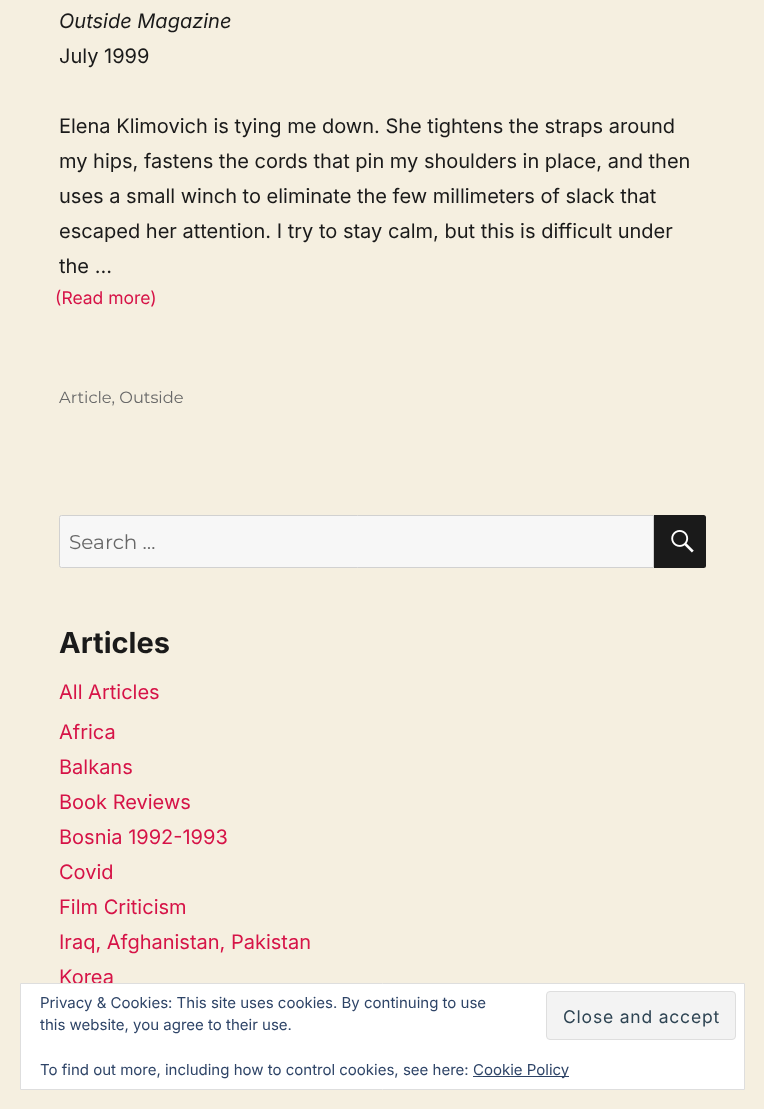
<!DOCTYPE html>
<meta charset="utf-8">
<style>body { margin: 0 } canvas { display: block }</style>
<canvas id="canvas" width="764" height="1109"></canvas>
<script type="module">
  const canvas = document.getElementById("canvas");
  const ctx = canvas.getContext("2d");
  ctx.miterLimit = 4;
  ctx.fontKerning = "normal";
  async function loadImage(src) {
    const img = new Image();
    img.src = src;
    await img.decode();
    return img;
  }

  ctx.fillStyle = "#f5efe0";
  ctx.fillRect(0, 0, 764, 1109);
  ctx.font = "italic 20px Inter";
  ctx.fillStyle = "#1a1a1a";
  ctx.fillText("Outside Magazine", 59, 28);
  ctx.font = "20px Inter";
  ctx.fillText("July 1999", 59, 63);
  ctx.fillText("Elena Klimovich is tying me down. She tightens the straps around", 59, 133);
  ctx.fillText("my hips, fastens the cords that pin my shoulders in place, and then", 59, 168);
  ctx.fillText("uses a small winch to eliminate the few millimeters of slack that", 59, 203);
  ctx.fillText("escaped her attention. I try to stay calm, but this is difficult under", 59, 238);
  ctx.fillText("the ...", 59, 273);
  ctx.font = "17.5px Inter";
  ctx.fillStyle = "#d61347";
  ctx.fillText("(Read more)", 55, 304);
  ctx.font = "100 16.25px Montserrat";
  ctx.fillStyle = "#686868";
  ctx.fillText("Article, Outside", 59, 403);
  ctx.fillStyle = "#f7f7f7";
  ctx.beginPath();
  ctx.roundRect(59.5, 515.5, 594, 52, [2, 0, 0, 2]);
  ctx.fill();
  ctx.strokeStyle = "#d1d1d1";
  ctx.stroke();
  ctx.font = "100 20px Montserrat";
  ctx.fillStyle = "#686868";
  ctx.fillText("Search …", 69, 549);
  ctx.fillStyle = "#1a1a1a";
  ctx.beginPath();
  ctx.roundRect(654, 515, 52, 53, [0, 2.5, 2.5, 0]);
  ctx.fill();
  ctx.drawImage(await loadImage("img1.png"), 671, 530, 23, 23);
  ctx.font = "bold 29px Inter";
  ctx.fillText("Articles", 59, 653);
  ctx.font = "20px Inter";
  ctx.fillStyle = "#d61347";
  ctx.fillText("All Articles", 59, 699);
  ctx.fillText("Africa", 59, 739);
  ctx.fillText("Balkans", 59, 774);
  ctx.fillText("Book Reviews", 59, 809);
  ctx.fillText("Bosnia 1992-1993", 59, 844);
  ctx.fillText("Covid", 59, 879);
  ctx.fillText("Film Criticism", 59, 914);
  ctx.fillText("Iraq, Afghanistan, Pakistan", 59, 949);
  ctx.fillText("Korea", 59, 984);
  ctx.fillStyle = "#ffffff";
  ctx.beginPath();
  ctx.rect(20.5, 983.5, 724, 106);
  ctx.fill();
  ctx.strokeStyle = "#dedede";
  ctx.stroke();
  ctx.font = "15px Inter";
  ctx.fillStyle = "#2e4467";
  ctx.fillText("Privacy & Cookies: This site uses cookies. By continuing to use", 40, 1008);
  ctx.fillText("this website, you agree to their use.", 40, 1030);
  ctx.fillStyle = "#f3f3f3";
  ctx.beginPath();
  ctx.roundRect(546.5, 991.5, 189, 48, 3.5);
  ctx.fill();
  ctx.stroke();
  ctx.letterSpacing = "0.8px";
  ctx.font = "17.5px Inter";
  ctx.fillStyle = "#2e4453";
  ctx.fillText("Close and accept", 563, 1023);
  ctx.letterSpacing = "0px";
  ctx.font = "15px Inter";
  ctx.fillStyle = "#2e4467";
  ctx.fillText("To find out more, including how to control cookies, see here:", 40, 1075);
  ctx.fillRect(473, 1076, 96, 1);
  ctx.fillText("Cookie Policy", 473, 1075);
</script>
